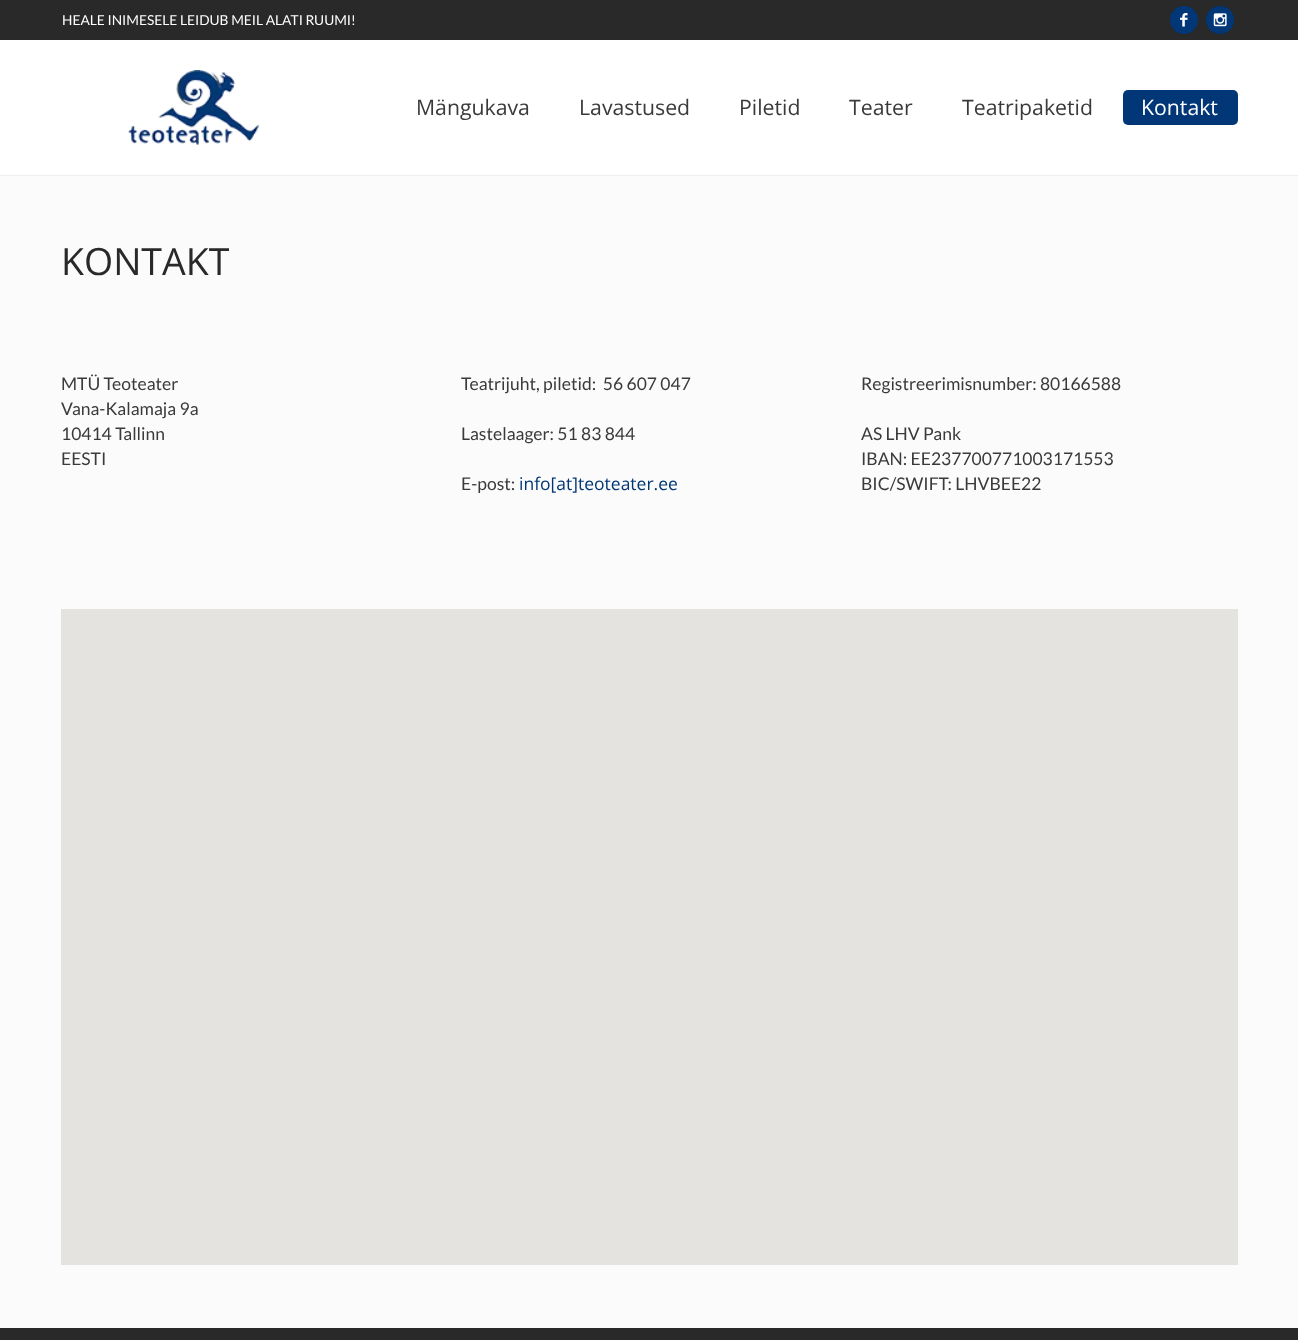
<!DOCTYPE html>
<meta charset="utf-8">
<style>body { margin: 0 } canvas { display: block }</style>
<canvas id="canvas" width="1298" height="1340"></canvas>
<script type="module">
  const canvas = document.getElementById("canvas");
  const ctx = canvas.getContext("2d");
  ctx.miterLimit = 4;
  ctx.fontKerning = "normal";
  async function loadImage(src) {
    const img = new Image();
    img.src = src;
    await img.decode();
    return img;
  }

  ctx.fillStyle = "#fbfbfb";
  ctx.fillRect(0, 0, 1298, 1340);
  ctx.fillStyle = "rgba(0, 0, 0, 0.05)";
  ctx.filter = "blur(0.5px)";
  ctx.beginPath();
  ctx.rect(0, 1, 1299, 175);
  ctx.fill();
  ctx.filter = "none";
  ctx.fillStyle = "#292929";
  ctx.fillRect(0, 0, 1298, 40);
  ctx.font = "13.75px Lato";
  ctx.fillStyle = "#ffffff";
  ctx.fillText("HEALE INIMESELE LEIDUB MEIL ALATI RUUMI!", 62, 25);
  ctx.fillStyle = "#013777";
  ctx.beginPath();
  ctx.arc(1184, 20, 14, 0, Math.PI * 2);
  ctx.fill();
  ctx.drawImage(await loadImage("img1.png"), 1180, 13, 8, 14);
  ctx.beginPath();
  ctx.arc(1220, 20, 14, 0, Math.PI * 2);
  ctx.fill();
  ctx.drawImage(await loadImage("img2.png"), 1213, 13, 14, 14);
  ctx.fillStyle = "#ffffff";
  ctx.fillRect(0, 40, 1298, 135);
  ctx.drawImage(await loadImage("img3.png"), 128, 70, 131, 75);
  ctx.font = "21.25px Open Sans";
  ctx.fillStyle = "#3a3a3a";
  ctx.fillText("Mängukava", 416, 115);
  ctx.fillText("Lavastused", 579, 115);
  ctx.fillText("Piletid", 739, 115);
  ctx.fillText("Teater", 849, 115);
  ctx.fillText("Teatripaketid", 962, 115);
  ctx.fillStyle = "#013777";
  ctx.beginPath();
  ctx.roundRect(1123, 90, 115, 35, 5);
  ctx.fill();
  ctx.fillStyle = "#ffffff";
  ctx.fillText("Kontakt", 1141, 115);
  ctx.font = "37.5px Open Sans";
  ctx.fillStyle = "#292929";
  ctx.fillText("KONTAKT", 61, 275);
  ctx.font = "17.5px Lato";
  ctx.fillStyle = "#3a3a3a";
  ctx.fillText("MTÜ Teoteater", 61, 390);
  ctx.fillText("Vana-Kalamaja 9a", 61, 415);
  ctx.fillText("10414 Tallinn", 61, 440);
  ctx.fillText("EESTI", 61, 465);
  ctx.fillText("Teatrijuht, piletid:  56 607 047", 461, 390);
  ctx.fillText("Lastelaager: 51 83 844", 461, 440);
  ctx.fillText("E-post:", 461, 490);
  ctx.font = "17.5px Open Sans";
  ctx.fillStyle = "#013777";
  ctx.fillText("info[at]teoteater.ee", 519, 490);
  ctx.font = "17.5px Lato";
  ctx.fillStyle = "#3a3a3a";
  ctx.fillText("Registreerimisnumber: 80166588", 861, 390);
  ctx.fillText("AS LHV Pank", 861, 440);
  ctx.fillText("IBAN: EE237700771003171553", 861, 465);
  ctx.fillText("BIC/SWIFT: LHVBEE22", 861, 490);
  ctx.fillStyle = "#e5e3df";
  ctx.fillRect(61, 609, 1177, 656);
  ctx.fillStyle = "#292929";
  ctx.fillRect(0, 1328, 1298, 12);
</script>
